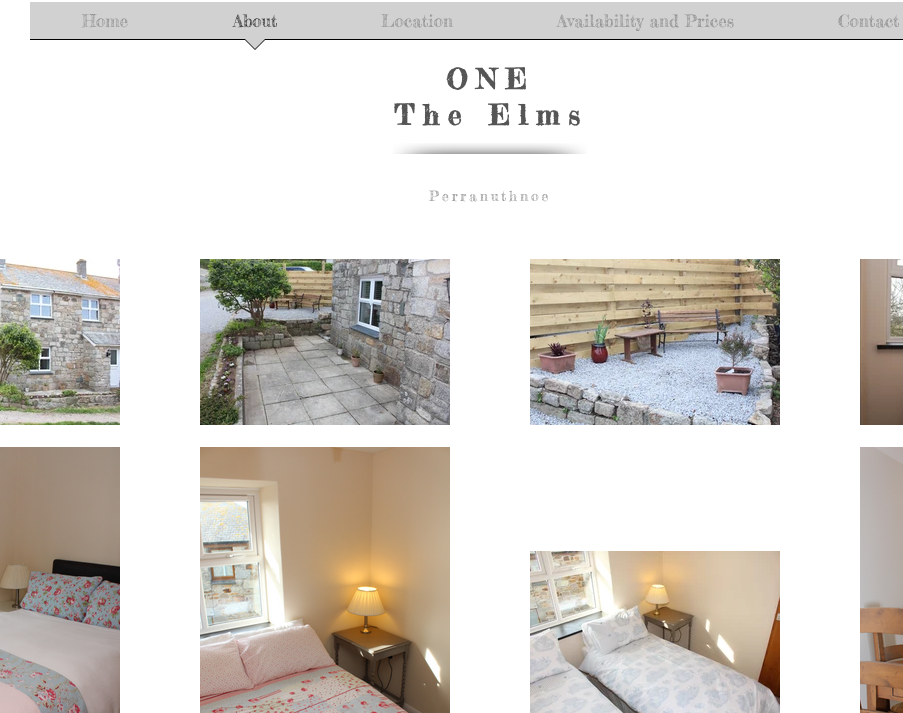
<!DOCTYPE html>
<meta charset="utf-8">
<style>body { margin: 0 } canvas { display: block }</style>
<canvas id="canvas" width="903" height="713"></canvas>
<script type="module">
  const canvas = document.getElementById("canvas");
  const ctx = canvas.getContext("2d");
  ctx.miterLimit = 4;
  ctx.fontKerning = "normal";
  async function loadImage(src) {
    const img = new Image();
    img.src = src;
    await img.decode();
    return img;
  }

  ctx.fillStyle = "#ffffff";
  ctx.fillRect(0, 0, 903, 713);
  ctx.fillStyle = "#d1d1d1";
  ctx.fillRect(30, 2, 873, 37);
  ctx.fillStyle = "#000000";
  ctx.fillRect(30, 39, 873, 1);
  ctx.font = "17px Fredericka the Great";
  ctx.fillStyle = "#8b8b8b";
  ctx.fillText("Home", 82, 27);
  ctx.fillStyle = "#242424";
  ctx.fillText("About", 233, 27);
  ctx.fillStyle = "#000000";
  ctx.beginPath();
  ctx.moveTo(244, 39);
  ctx.lineTo(266, 39);
  ctx.lineTo(255, 50);
  ctx.closePath();
  ctx.fill();
  ctx.fillStyle = "#d1d1d1";
  ctx.beginPath();
  ctx.moveTo(245, 39);
  ctx.lineTo(265, 39);
  ctx.lineTo(255, 49);
  ctx.closePath();
  ctx.fill();
  ctx.fillStyle = "#8b8b8b";
  ctx.fillText("Location", 381, 27);
  ctx.fillText("Availability and Prices", 557, 27);
  ctx.fillText("Contact", 838, 27);
  ctx.letterSpacing = "8.5px";
  ctx.font = "bold 28px Fredericka the Great";
  ctx.fillStyle = "#555555";
  ctx.fillText("ONE", 446, 89);
  ctx.fillText("The Elms", 394, 125);
  ctx.drawImage(await loadImage("img1.png"), 393, 143, 97, 11);
  ctx.drawImage(await loadImage("img2.png"), 490, 143, 97, 11);
  ctx.letterSpacing = "2.75px";
  ctx.font = "14px Fredericka the Great";
  ctx.fillStyle = "#8b8b8b";
  ctx.fillText("Perranuthnoe", 429, 201);
  ctx.drawImage(await loadImage("img3.png"), 0, 259, 120, 166);
  ctx.drawImage(await loadImage("img4.png"), 200, 259, 250, 166);
  ctx.drawImage(await loadImage("img5.png"), 530, 259, 250, 166);
  ctx.drawImage(await loadImage("img6.png"), 860, 259, 43, 166);
  ctx.drawImage(await loadImage("img7.png"), 0, 447, 120, 266);
  ctx.drawImage(await loadImage("img8.png"), 200, 447, 250, 266);
  ctx.drawImage(await loadImage("img9.png"), 530, 551, 250, 162);
  ctx.drawImage(await loadImage("img10.png"), 860, 447, 43, 266);
</script>
